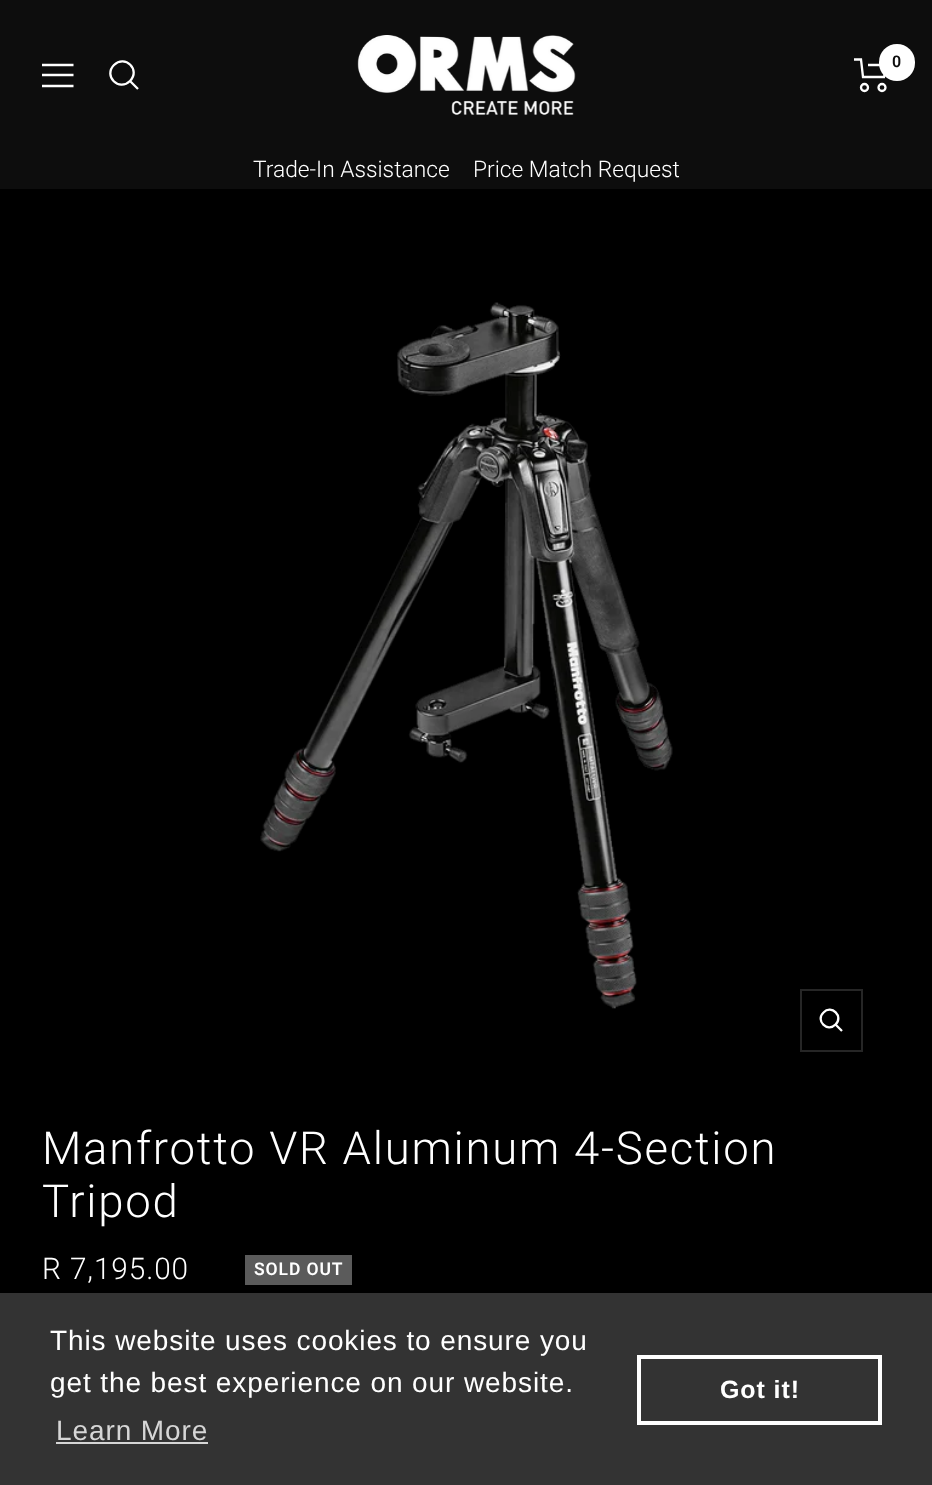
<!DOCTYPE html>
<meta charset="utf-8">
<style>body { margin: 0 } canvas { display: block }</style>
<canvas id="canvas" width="932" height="1485"></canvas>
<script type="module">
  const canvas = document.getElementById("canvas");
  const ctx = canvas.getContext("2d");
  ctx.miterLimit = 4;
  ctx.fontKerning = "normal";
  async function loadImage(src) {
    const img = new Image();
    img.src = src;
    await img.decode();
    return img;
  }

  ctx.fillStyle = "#000000";
  ctx.fillRect(0, 0, 932, 1485);
  ctx.fillStyle = "#0d0d0d";
  ctx.fillRect(0, 0, 932, 189);
  ctx.beginPath();
  ctx.moveTo(42, 65);
  ctx.lineTo(73.5, 65);
  ctx.moveTo(42, 86);
  ctx.lineTo(73.5, 86);
  ctx.closePath();
  ctx.moveTo(42, 75);
  ctx.lineTo(73.5, 75);
  ctx.closePath();
  ctx.strokeStyle = "#ffffff";
  ctx.lineWidth = 2.3;
  ctx.stroke();
  ctx.beginPath();
  ctx.moveTo(130, 81);
  ctx.bezierCurveTo(141, 70, 125, 54, 114, 65);
  ctx.bezierCurveTo(103, 76, 119, 92, 130, 81);
  ctx.closePath();
  ctx.moveTo(130, 81);
  ctx.lineTo(138, 89);
  ctx.stroke();
  ctx.drawImage(await loadImage("img1.png"), 357, 35, 219, 80);
  ctx.beginPath();
  ctx.moveTo(854, 59.5);
  ctx.lineTo(861, 59.5);
  ctx.lineTo(863, 77);
  ctx.lineTo(884, 77);
  ctx.lineTo(887, 65);
  ctx.lineTo(868, 65);
  ctx.stroke();
  ctx.beginPath();
  ctx.arc(864.5, 87.5, 3.5, 0, Math.PI * 2);
  ctx.stroke();
  ctx.beginPath();
  ctx.arc(882, 87.5, 3.5, 0, Math.PI * 2);
  ctx.stroke();
  ctx.fillStyle = "#ffffff";
  ctx.beginPath();
  ctx.roundRect(879, 44, 36, 37, 18);
  ctx.fill();
  ctx.font = "600 16px Roboto";
  ctx.fillStyle = "#0d0d0d";
  ctx.fillText("0", 892, 67);
  ctx.font = "300 22.75px Roboto";
  ctx.fillStyle = "#ffffff";
  ctx.fillText("Trade-In Assistance", 253, 177);
  ctx.fillText("Price Match Request", 473, 177);
  ctx.drawImage(await loadImage("img2.png"), 260, 302, 413, 707);
  ctx.strokeStyle = "#262626";
  ctx.lineWidth = 2;
  ctx.strokeRect(801, 990, 61, 61);
  ctx.beginPath();
  ctx.moveTo(835.5, 1024.5);
  ctx.bezierCurveTo(844, 1016.5, 831.5, 1004, 823.5, 1012.5);
  ctx.bezierCurveTo(815, 1020.5, 827.5, 1033, 835.5, 1024.5);
  ctx.closePath();
  ctx.moveTo(835.5, 1024.5);
  ctx.lineTo(842, 1031);
  ctx.strokeStyle = "#ffffff";
  ctx.lineWidth = 2.3;
  ctx.stroke();
  ctx.letterSpacing = "1.75px";
  ctx.font = "300 45.5px Roboto";
  ctx.fillText("Manfrotto VR Aluminum 4-Section", 42, 1164);
  ctx.fillText("Tripod", 42, 1217);
  ctx.letterSpacing = "0.9px";
  ctx.font = "300 29.75px Roboto";
  ctx.fillText("R 7,195.00", 42, 1279);
  ctx.fillStyle = "#5b5b5b";
  ctx.fillRect(245, 1255, 107, 30);
  ctx.font = "600 17.5px Roboto";
  ctx.fillStyle = "#ffffff";
  ctx.fillText("SOLD OUT", 254, 1275);
  ctx.fillStyle = "#333333";
  ctx.fillRect(0, 1293, 932, 192);
  ctx.font = "28px Liberation Sans";
  ctx.fillStyle = "#ffffff";
  ctx.fillText("This website uses cookies to ensure you", 50, 1350);
  ctx.fillText("get the best experience on our website.", 50, 1392);
  ctx.fillStyle = "#d6d6d6";
  ctx.fillText("Learn More", 56, 1440);
  ctx.fillRect(56, 1442, 152, 2);
  ctx.lineWidth = 4;
  ctx.strokeRect(639, 1357, 241, 66);
  ctx.font = "bold 25px Liberation Sans";
  ctx.fillStyle = "#ffffff";
  ctx.fillText("Got it!", 720, 1398);
</script>
